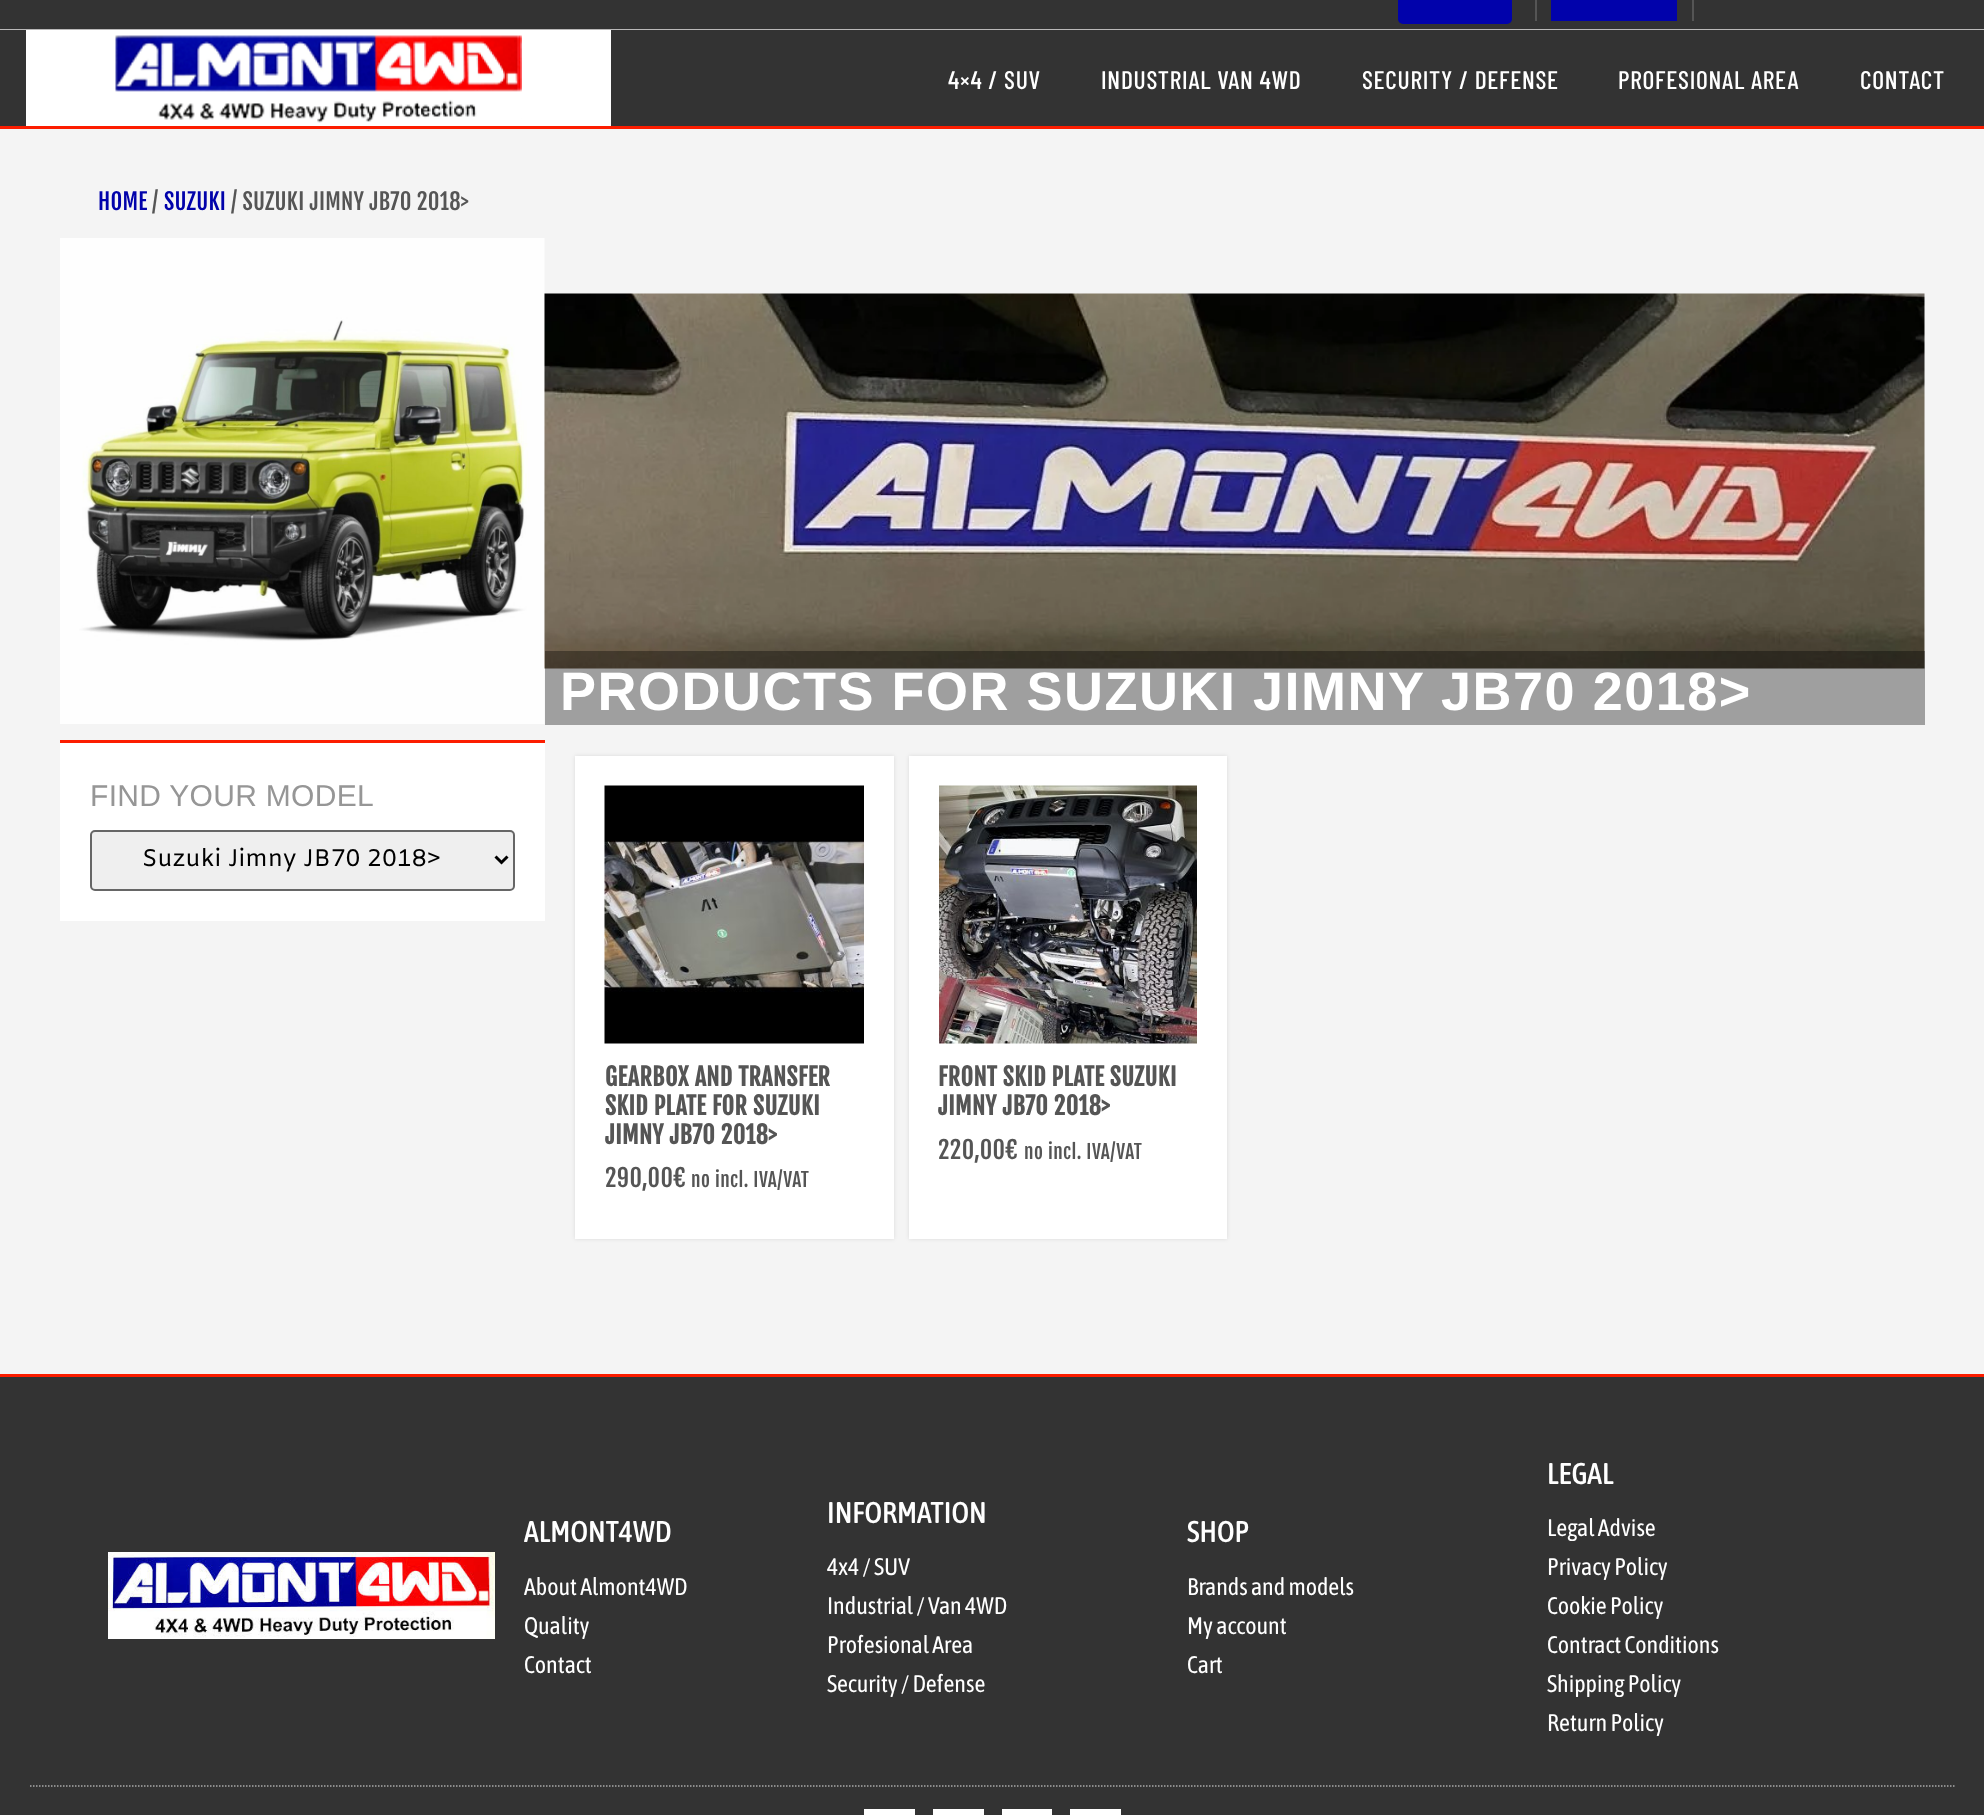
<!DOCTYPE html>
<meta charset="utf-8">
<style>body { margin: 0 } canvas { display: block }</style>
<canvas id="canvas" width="1984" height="1815"></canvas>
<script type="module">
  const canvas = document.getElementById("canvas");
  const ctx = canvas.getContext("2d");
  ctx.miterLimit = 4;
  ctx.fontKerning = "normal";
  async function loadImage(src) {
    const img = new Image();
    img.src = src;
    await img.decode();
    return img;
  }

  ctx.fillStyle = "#333333";
  ctx.fillRect(0, 0, 1984, 1815);
  ctx.fillStyle = "#bab9b9";
  ctx.fillRect(0, 29, 1984, 1);
  ctx.fillStyle = "#0102ab";
  ctx.beginPath();
  ctx.roundRect(1398, -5, 114, 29, 5);
  ctx.fill();
  ctx.fillStyle = "#555555";
  ctx.fillRect(1692, 0, 2, 21);
  ctx.fillRect(1535, 0, 2, 21);
  ctx.fillStyle = "#0102ab";
  ctx.fillRect(1551, 0, 126, 21);
  ctx.fillStyle = "#fc1d00";
  ctx.fillRect(0, 126, 1984, 3);
  ctx.fillStyle = "#ffffff";
  ctx.fillRect(26, 30, 585, 96);
  ctx.drawImage(await loadImage("img1.png"), 115, 35, 407, 88);
  ctx.letterSpacing = "0.75px";
  ctx.font = "500 25.5px Barlow Condensed";
  ctx.fillText("4×4 / SUV", 948, 89);
  ctx.fillText("INDUSTRIAL VAN 4WD", 1101, 89);
  ctx.fillText("SECURITY / DEFENSE", 1362, 89);
  ctx.fillText("PROFESIONAL AREA", 1618, 89);
  ctx.fillText("CONTACT", 1860, 89);
  ctx.fillStyle = "#f4f4f4";
  ctx.fillRect(0, 129, 1984, 1245);
  ctx.letterSpacing = "0.3px";
  ctx.font = "22.5px Fjalla One";
  ctx.fillStyle = "#0102ab";
  ctx.fillText("HOME", 98, 210);
  ctx.fillStyle = "#555555";
  ctx.fillText("/", 152, 210);
  ctx.fillStyle = "#0102ab";
  ctx.fillText("SUZUKI", 164, 210);
  ctx.fillStyle = "#555555";
  ctx.fillText("/ SUZUKI JIMNY JB70 2018>", 231, 210);
  ctx.drawImage(await loadImage("img2.png"), 60, 238, 485, 486);
  ctx.drawImage(await loadImage("img3.png"), 544, 293, 1381, 376);
  ctx.fillStyle = "rgba(0, 0, 0, 0.35)";
  ctx.fillRect(545, 651, 1380, 74);
  ctx.letterSpacing = "1.5px";
  ctx.font = "bold 54px Liberation Sans";
  ctx.fillStyle = "#ffffff";
  ctx.fillText("PRODUCTS FOR SUZUKI JIMNY JB70 2018>", 560, 710);
  ctx.fillRect(60, 743, 485, 178);
  ctx.fillStyle = "#fc1d00";
  ctx.fillRect(60, 740, 485, 3);
  ctx.letterSpacing = "0.3px";
  ctx.font = "30px Liberation Sans";
  ctx.fillStyle = "#969696";
  ctx.fillText("FIND YOUR MODEL", 90, 806);
  ctx.fillStyle = "#efefef";
  ctx.beginPath();
  ctx.roundRect(91, 831, 423, 59, 4);
  ctx.fill();
  ctx.strokeStyle = "#666666";
  ctx.lineWidth = 2;
  ctx.stroke();
  ctx.beginPath();
  ctx.moveTo(495.5, 856.5);
  ctx.lineTo(501.5, 862.5);
  ctx.lineTo(507.5, 856.5);
  ctx.strokeStyle = "#000000";
  ctx.lineWidth = 3;
  ctx.stroke();
  ctx.letterSpacing = "0px";
  ctx.font = "24px Amiko";
  ctx.fillStyle = "#000000";
  ctx.fillText("Suzuki Jimny JB70 2018>", 142, 866);
  ctx.fillStyle = "rgba(0, 0, 0, 0.1)";
  ctx.filter = "blur(2px)";
  ctx.beginPath();
  ctx.rect(575, 756, 319, 483);
  ctx.fill();
  ctx.filter = "none";
  ctx.fillStyle = "#ffffff";
  ctx.fillRect(575, 756, 319, 483);
  ctx.drawImage(await loadImage("img4.png"), 604, 785, 260, 259);
  ctx.letterSpacing = "0.45px";
  ctx.font = "bold 24px Fjalla One";
  ctx.fillStyle = "#555555";
  ctx.fillText("GEARBOX AND TRANSFER", 605, 1086);
  ctx.fillText("SKID PLATE FOR SUZUKI", 605, 1115);
  ctx.fillText("JIMNY JB70 2018>", 605, 1144);
  ctx.font = "24px Fjalla One";
  ctx.fillText("290,00€", 605, 1187);
  ctx.font = "19.25px Fjalla One";
  ctx.fillText("no incl. IVA/VAT", 691, 1187);
  ctx.fillStyle = "rgba(0, 0, 0, 0.1)";
  ctx.filter = "blur(2px)";
  ctx.beginPath();
  ctx.rect(909, 756, 318, 483);
  ctx.fill();
  ctx.filter = "none";
  ctx.fillStyle = "#ffffff";
  ctx.fillRect(909, 756, 318, 483);
  ctx.drawImage(await loadImage("img5.png"), 939, 785, 258, 259);
  ctx.font = "bold 24px Fjalla One";
  ctx.fillStyle = "#555555";
  ctx.fillText("FRONT SKID PLATE SUZUKI", 938, 1086);
  ctx.fillText("JIMNY JB70 2018>", 938, 1115);
  ctx.font = "24px Fjalla One";
  ctx.fillText("220,00€", 938, 1159);
  ctx.font = "19.25px Fjalla One";
  ctx.fillText("no incl. IVA/VAT", 1024, 1159);
  ctx.fillStyle = "#fc1d00";
  ctx.fillRect(0, 1374, 1984, 3);
  ctx.drawImage(await loadImage("img6.png"), 108, 1552, 387, 87);
  ctx.letterSpacing = "0px";
  ctx.font = "500 30px Asap Condensed";
  ctx.fillStyle = "#ffffff";
  ctx.fillText("ALMONT4WD", 524, 1542);
  ctx.font = "24px Asap Condensed";
  ctx.fillText("About Almont4WD", 524, 1595);
  ctx.fillText("Quality", 524, 1634);
  ctx.fillText("Contact", 524, 1673);
  ctx.font = "500 30px Asap Condensed";
  ctx.fillText("INFORMATION", 827, 1523);
  ctx.font = "24px Asap Condensed";
  ctx.fillText("4x4 / SUV", 827, 1575);
  ctx.fillText("Industrial / Van 4WD", 827, 1614);
  ctx.fillText("Profesional Area", 827, 1653);
  ctx.fillText("Security / Defense", 827, 1692);
  ctx.font = "500 30px Asap Condensed";
  ctx.fillText("SHOP", 1187, 1542);
  ctx.font = "24px Asap Condensed";
  ctx.fillText("Brands and models", 1187, 1595);
  ctx.fillText("My account", 1187, 1634);
  ctx.fillText("Cart", 1187, 1673);
  ctx.font = "500 30px Asap Condensed";
  ctx.fillText("LEGAL", 1547, 1484);
  ctx.font = "24px Asap Condensed";
  ctx.fillText("Legal Advise", 1547, 1536);
  ctx.fillText("Privacy Policy", 1547, 1575);
  ctx.fillText("Cookie Policy", 1547, 1614);
  ctx.fillText("Contract Conditions", 1547, 1653);
  ctx.fillText("Shipping Policy", 1547, 1692);
  ctx.fillText("Return Policy", 1547, 1731);
  ctx.beginPath();
  ctx.moveTo(30, 1786);
  ctx.lineTo(1954.5, 1786);
  ctx.strokeStyle = "#ababab";
  ctx.lineWidth = 1.5;
  ctx.setLineDash([1.5, 1.5]);
  ctx.stroke();
  ctx.fillRect(864, 1809, 51, 6);
  ctx.fillRect(933, 1809, 51, 6);
  ctx.fillRect(1002, 1809, 50, 6);
  ctx.fillRect(1070, 1809, 51, 6);
</script>
